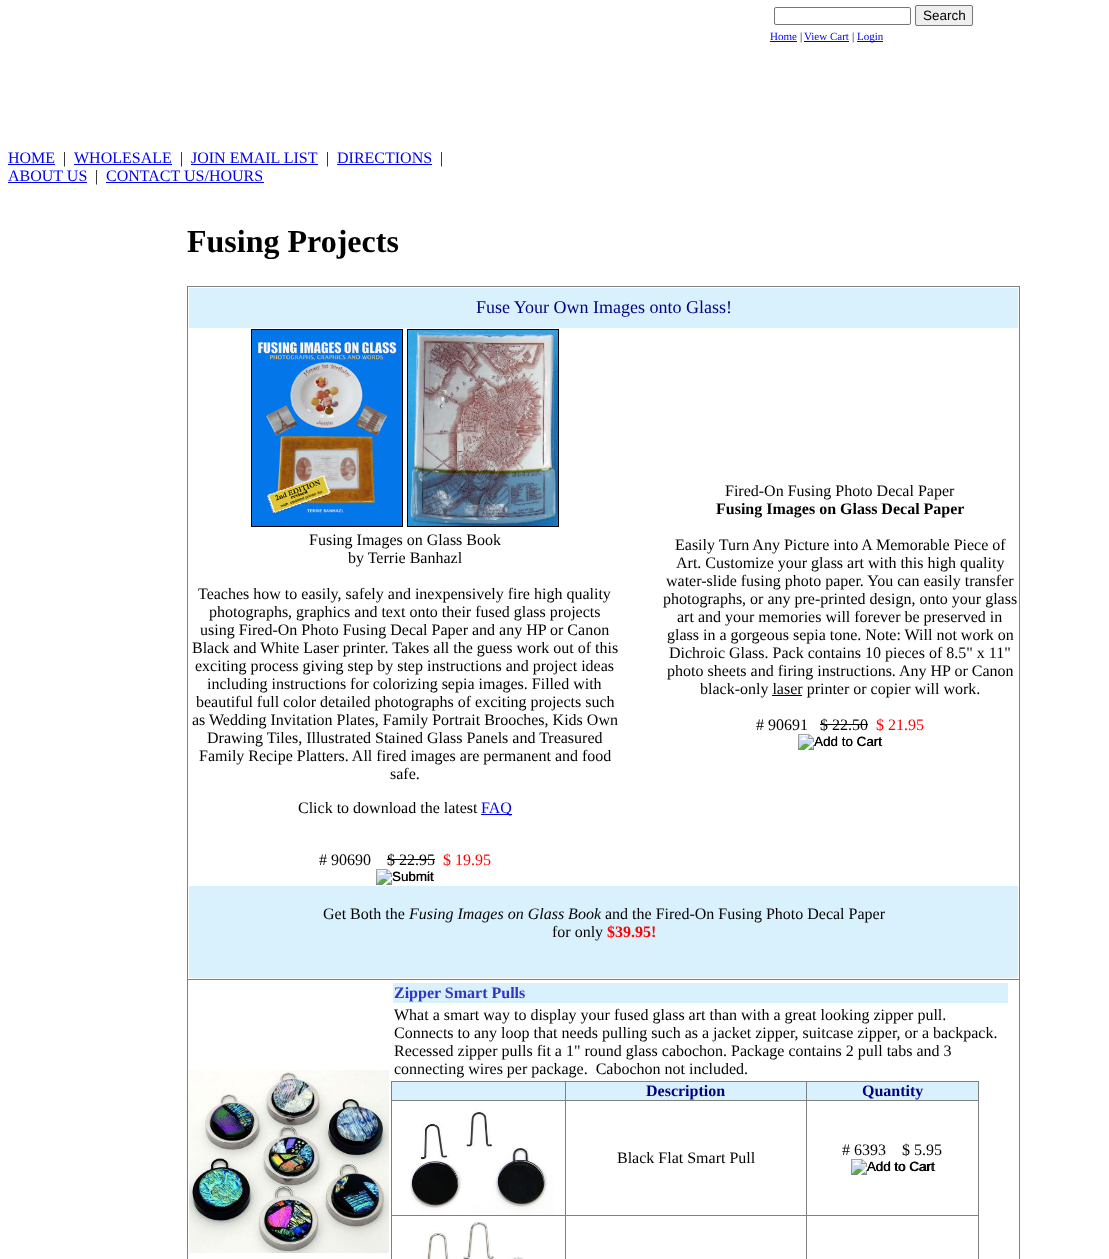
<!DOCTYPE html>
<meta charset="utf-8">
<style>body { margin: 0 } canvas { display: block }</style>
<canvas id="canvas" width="1109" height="1259"></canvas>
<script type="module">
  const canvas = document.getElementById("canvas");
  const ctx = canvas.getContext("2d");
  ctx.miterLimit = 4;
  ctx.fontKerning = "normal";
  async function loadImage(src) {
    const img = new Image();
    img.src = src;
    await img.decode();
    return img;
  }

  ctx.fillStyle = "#ffffff";
  ctx.fillRect(0, 0, 1109, 1259);
  ctx.beginPath();
  ctx.roundRect(774.5, 7.5, 136, 17, 1.5);
  ctx.strokeStyle = "#767676";
  ctx.stroke();
  ctx.fillStyle = "#efefef";
  ctx.beginPath();
  ctx.roundRect(915.5, 5.5, 57, 20, 1.5);
  ctx.fill();
  ctx.stroke();
  ctx.font = "13.5px Liberation Sans";
  ctx.fillStyle = "#000000";
  ctx.fillText("Search", 923, 20);
  ctx.font = "11px Liberation Serif";
  ctx.fillStyle = "#0000ee";
  ctx.fillText("Home", 770, 40);
  ctx.fillRect(770, 41, 27, 1);
  ctx.fillStyle = "#000000";
  ctx.fillText("|", 800, 40);
  ctx.fillStyle = "#0000ee";
  ctx.fillText("View Cart", 804, 40);
  ctx.fillRect(804, 41, 45, 1);
  ctx.fillStyle = "#000000";
  ctx.fillText("|", 852, 40);
  ctx.fillStyle = "#0000ee";
  ctx.fillRect(857, 41, 26, 1);
  ctx.fillText("Login", 857, 40);
  ctx.font = "16px Liberation Serif";
  ctx.fillText("HOME", 8, 163);
  ctx.fillRect(8, 164, 47, 1);
  ctx.fillStyle = "#000000";
  ctx.fillText("|", 63, 163);
  ctx.fillStyle = "#0000ee";
  ctx.fillText("WHOLESALE", 74, 163);
  ctx.fillRect(74, 164, 98, 1);
  ctx.fillStyle = "#000000";
  ctx.fillText("|", 180, 163);
  ctx.fillStyle = "#0000ee";
  ctx.fillText("JOIN EMAIL LIST", 191, 163);
  ctx.fillRect(191, 164, 127, 1);
  ctx.fillStyle = "#000000";
  ctx.fillText("|", 326, 163);
  ctx.fillStyle = "#0000ee";
  ctx.fillText("DIRECTIONS", 337, 163);
  ctx.fillRect(337, 164, 95, 1);
  ctx.fillStyle = "#000000";
  ctx.fillText("|", 440, 163);
  ctx.fillStyle = "#0000ee";
  ctx.fillText("ABOUT US", 8, 181);
  ctx.fillRect(8, 182, 79, 1);
  ctx.fillStyle = "#000000";
  ctx.fillText("|", 95, 181);
  ctx.fillStyle = "#0000ee";
  ctx.fillText("CONTACT US/HOURS", 106, 181);
  ctx.fillRect(106, 182, 158, 1);
  ctx.font = "bold 32px Liberation Serif";
  ctx.fillStyle = "#000000";
  ctx.fillText("Fusing Projects", 187, 252);
  ctx.fillStyle = "#808080";
  ctx.fillRect(187, 286, 833, 1);
  ctx.fillRect(1019, 286, 1, 973);
  ctx.fillRect(187, 286, 1, 973);
  ctx.fillStyle = "#d9f0fd";
  ctx.fillRect(189, 288, 829, 40);
  ctx.font = "18px Liberation Serif";
  ctx.fillStyle = "#000080";
  ctx.fillText("Fuse Your Own Images onto Glass!", 476, 313);
  ctx.strokeStyle = "#000000";
  ctx.strokeRect(251.5, 329.5, 151, 197);
  ctx.strokeRect(407.5, 329.5, 151, 197);
  ctx.drawImage(await loadImage("img1.png"), 252, 330, 150, 196);
  ctx.drawImage(await loadImage("img2.png"), 408, 330, 150, 196);
  ctx.font = "16px Liberation Serif";
  ctx.fillStyle = "#000000";
  ctx.fillText("Fusing Images on Glass Book", 309, 545);
  ctx.fillText("by Terrie Banhazl", 348, 563);
  ctx.fillText("Teaches how to easily, safely and inexpensively fire high quality", 198, 599);
  ctx.fillText("photographs, graphics and text onto their fused glass projects", 209, 617);
  ctx.fillText("using Fired-On Photo Fusing Decal Paper and any HP or Canon", 200, 635);
  ctx.fillText("Black and White Laser printer. Takes all the guess work out of this", 192, 653);
  ctx.fillText("exciting process giving step by step instructions and project ideas", 195, 671);
  ctx.fillText("including instructions for colorizing sepia images. Filled with", 207, 689);
  ctx.fillText("beautiful full color detailed photographs of exciting projects such", 196, 707);
  ctx.fillText("as Wedding Invitation Plates, Family Portrait Brooches, Kids Own", 192, 725);
  ctx.fillText("Drawing Tiles, Illustrated Stained Glass Panels and Treasured", 207, 743);
  ctx.fillText("Family Recipe Platters. All fired images are permanent and food", 199, 761);
  ctx.fillText("safe.", 390, 779);
  ctx.fillText("Click to download the latest", 298, 813);
  ctx.fillStyle = "#0000ee";
  ctx.fillRect(481, 814, 31, 1);
  ctx.fillText("FAQ", 481, 813);
  ctx.fillStyle = "#000000";
  ctx.fillText("# 90690", 319, 865);
  ctx.fillText("$ 22.95", 387, 865);
  ctx.fillRect(387, 859, 48, 1);
  ctx.fillStyle = "#ff0000";
  ctx.fillText("$ 19.95", 443, 865);
  ctx.drawImage(await loadImage("img3.png"), 376, 869, 58, 16);
  ctx.font = "13.5px Liberation Sans";
  ctx.fillStyle = "#000000";
  ctx.fillText("Submit", 392, 881);
  ctx.font = "16px Liberation Serif";
  ctx.fillText("Fired-On Fusing Photo Decal Paper", 725, 496);
  ctx.font = "bold 16px Liberation Serif";
  ctx.fillText("Fusing Images on Glass Decal Paper", 716, 514);
  ctx.font = "16px Liberation Serif";
  ctx.fillText("Easily Turn Any Picture into A Memorable Piece of", 675, 550);
  ctx.fillText("Art. Customize your glass art with this high quality", 676, 568);
  ctx.fillText("water-slide fusing photo paper. You can easily transfer", 666, 586);
  ctx.fillText("photographs, or any pre-printed design, onto your glass", 663, 604);
  ctx.fillText("art and your memories will forever be preserved in", 677, 622);
  ctx.fillText("glass in a gorgeous sepia tone. Note: Will not work on", 667, 640);
  ctx.fillText("Dichroic Glass. Pack contains 10 pieces of 8.5\" x 11\"", 669, 658);
  ctx.fillText("photo sheets and firing instructions.", 667, 676);
  ctx.fillText("Any HP or Canon", 899, 676);
  ctx.fillText("black-only laser printer or copier will work.", 700, 694);
  ctx.fillRect(772, 695, 30, 1);
  ctx.fillText("# 90691", 756, 730);
  ctx.fillText("$ 22.50", 820, 730);
  ctx.fillRect(820, 724, 48, 1);
  ctx.fillStyle = "#ff0000";
  ctx.fillText("$ 21.95", 876, 730);
  ctx.drawImage(await loadImage("img4.png"), 798, 734, 84, 16);
  ctx.font = "13.5px Liberation Sans";
  ctx.fillStyle = "#000000";
  ctx.fillText("Add to Cart", 814, 746);
  ctx.fillStyle = "#d9f0fd";
  ctx.fillRect(189, 886, 829, 92);
  ctx.font = "16px Liberation Serif";
  ctx.fillStyle = "#000000";
  ctx.fillText("Get Both the", 323, 919);
  ctx.font = "italic 16px Liberation Serif";
  ctx.fillText("Fusing Images on Glass Book", 409, 919);
  ctx.font = "16px Liberation Serif";
  ctx.fillText("and the Fired-On Fusing Photo Decal Paper", 605, 919);
  ctx.fillText("for only", 552, 937);
  ctx.font = "bold 16px Liberation Serif";
  ctx.fillStyle = "#ff0000";
  ctx.fillText("$39.95!", 607, 937);
  ctx.fillStyle = "#808080";
  ctx.fillRect(187, 979, 833, 1);
  ctx.drawImage(await loadImage("img5.png"), 189, 1070, 200, 183);
  ctx.fillStyle = "#d9f0fd";
  ctx.fillRect(393, 983, 615, 20);
  ctx.fillStyle = "#3333cc";
  ctx.fillText("Zipper Smart Pulls", 394, 998);
  ctx.font = "16px Liberation Serif";
  ctx.fillStyle = "#000000";
  ctx.fillText("What a smart way to display your fused glass art than with a great looking zipper pull.", 394, 1020);
  ctx.fillText("Connects to any loop that needs pulling such as a jacket zipper, suitcase zipper, or a backpack.", 394, 1038);
  ctx.fillText("Recessed zipper pulls fit a 1\" round glass cabochon. Package contains 2 pull tabs and 3", 394, 1056);
  ctx.fillText("connecting wires per package.  Cabochon not included.", 394, 1074);
  ctx.fillStyle = "#808080";
  ctx.fillRect(391, 1081, 588, 1);
  ctx.fillRect(978, 1081, 1, 178);
  ctx.fillRect(391, 1081, 1, 178);
  ctx.fillStyle = "#d9f0fd";
  ctx.fillRect(392, 1082, 173, 18);
  ctx.fillRect(566, 1082, 240, 18);
  ctx.fillStyle = "#808080";
  ctx.fillRect(806, 1100, 173, 1);
  ctx.fillRect(806, 1215, 173, 1);
  ctx.fillRect(806, 1215, 1, 44);
  ctx.fillRect(565, 1215, 242, 1);
  ctx.fillRect(806, 1100, 1, 116);
  ctx.fillRect(565, 1100, 242, 1);
  ctx.fillRect(565, 1215, 1, 44);
  ctx.fillRect(391, 1215, 175, 1);
  ctx.fillRect(565, 1100, 1, 116);
  ctx.fillRect(391, 1100, 175, 1);
  ctx.fillRect(565, 1081, 1, 20);
  ctx.font = "bold 16px Liberation Serif";
  ctx.fillStyle = "#000080";
  ctx.fillText("Description", 646, 1096);
  ctx.fillStyle = "#d9f0fd";
  ctx.fillRect(807, 1082, 171, 18);
  ctx.fillStyle = "#808080";
  ctx.fillRect(806, 1081, 1, 20);
  ctx.fillStyle = "#000080";
  ctx.fillText("Quantity", 862, 1096);
  ctx.drawImage(await loadImage("img6.png"), 410, 1110, 144, 105);
  ctx.font = "16px Liberation Serif";
  ctx.fillStyle = "#000000";
  ctx.fillText("Black Flat Smart Pull", 617, 1163);
  ctx.fillText("# 6393    $ 5.95", 842, 1155);
  ctx.drawImage(await loadImage("img7.png"), 851, 1159, 83, 16);
  ctx.font = "13.5px Liberation Sans";
  ctx.fillText("Add to Cart", 867, 1171);
  ctx.drawImage(await loadImage("img8.png"), 427, 1220, 97, 39);
</script>
